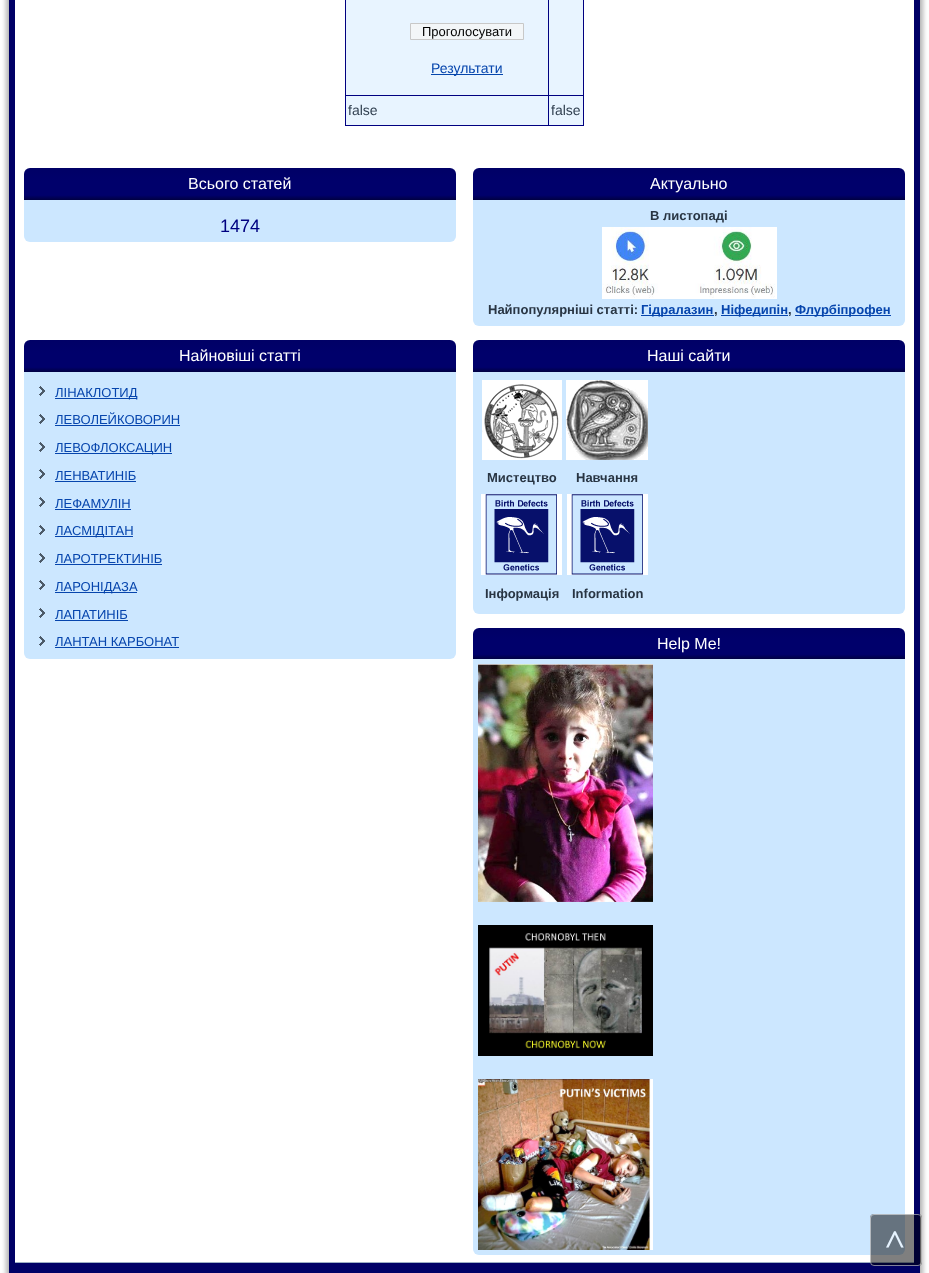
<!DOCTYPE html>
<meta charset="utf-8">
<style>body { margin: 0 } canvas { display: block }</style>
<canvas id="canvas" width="929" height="1273"></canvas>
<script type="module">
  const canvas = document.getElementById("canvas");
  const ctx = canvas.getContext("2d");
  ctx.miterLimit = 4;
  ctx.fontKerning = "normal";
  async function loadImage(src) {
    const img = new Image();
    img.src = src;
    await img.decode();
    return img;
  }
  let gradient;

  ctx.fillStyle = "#ffffff";
  ctx.fillRect(0, 0, 929, 1273);
  ctx.save();
  ctx.beginPath();
  ctx.moveTo(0, 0);
  ctx.lineTo(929, 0);
  ctx.lineTo(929, 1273);
  ctx.lineTo(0, 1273);
  ctx.closePath();
  ctx.moveTo(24, -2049);
  ctx.lineTo(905, -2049);
  ctx.bezierCurveTo(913.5, -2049, 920, -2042.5, 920, -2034);
  ctx.lineTo(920, 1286);
  ctx.bezierCurveTo(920, 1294.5, 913.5, 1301, 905, 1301);
  ctx.lineTo(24, 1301);
  ctx.bezierCurveTo(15.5, 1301, 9, 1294.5, 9, 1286);
  ctx.lineTo(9, -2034);
  ctx.bezierCurveTo(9, -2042.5, 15.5, -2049, 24, -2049);
  ctx.closePath();
  ctx.clip("evenodd");
  ctx.fillStyle = "rgba(0, 0, 0, 0.3)";
  ctx.filter = "blur(2.5px)";
  ctx.beginPath();
  ctx.roundRect(6, -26, 917, 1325, 18);
  ctx.fill();
  ctx.filter = "none";
  ctx.restore();
  ctx.strokeStyle = "#000066";
  ctx.lineWidth = 6;
  ctx.strokeRect(12, -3, 905, 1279);
  ctx.fillStyle = "#e8f4ff";
  ctx.fillRect(346, 0, 237, 125);
  ctx.fillStyle = "#f3f6f8";
  ctx.beginPath();
  ctx.rect(410.5, 23.5, 113, 16);
  ctx.fill();
  ctx.strokeStyle = "#c8c8c8";
  ctx.lineWidth = 1;
  ctx.stroke();
  ctx.font = "13px Liberation Sans";
  ctx.fillStyle = "#000000";
  ctx.fillText("Проголосувати", 422, 36);
  ctx.fillStyle = "#0646ac";
  ctx.fillRect(431, 74, 72, 1);
  ctx.font = "14px Liberation Sans";
  ctx.fillStyle = "#0645ad";
  ctx.fillText("Результати", 431, 73);
  ctx.fillStyle = "#000080";
  ctx.fillRect(548, 95, 36, 1);
  ctx.fillRect(583, 0, 1, 126);
  ctx.fillRect(548, 125, 36, 1);
  ctx.fillRect(548, 95, 1, 31);
  ctx.fillRect(345, 95, 204, 1);
  ctx.fillRect(548, 0, 1, 96);
  ctx.fillRect(345, 125, 204, 1);
  ctx.fillRect(345, 0, 1, 126);
  ctx.fillStyle = "#303f50";
  ctx.fillText("false", 348, 115);
  ctx.fillText("false", 551, 115);
  gradient = ctx.createLinearGradient(240, 168, 240, 200);
  gradient.addColorStop(0, "#000066");
  gradient.addColorStop(0.4, "#00006b");
  gradient.addColorStop(0.85, "#00006b");
  gradient.addColorStop(1, "#000042");
  ctx.fillStyle = gradient;
  ctx.beginPath();
  ctx.roundRect(24, 168, 432, 32, [6, 6, 0, 0]);
  ctx.fill();
  ctx.font = "16px Liberation Sans";
  ctx.fillStyle = "#ffffff";
  ctx.fillText("Всього статей", 188, 189);
  ctx.fillStyle = "#cce7ff";
  ctx.beginPath();
  ctx.roundRect(24, 200, 432, 42, [0, 0, 6, 6]);
  ctx.fill();
  ctx.font = "18px Liberation Sans";
  ctx.fillStyle = "#000080";
  ctx.fillText("1474", 220, 232);
  gradient = ctx.createLinearGradient(689, 168, 689, 200);
  gradient.addColorStop(0, "#000066");
  gradient.addColorStop(0.4, "#00006b");
  gradient.addColorStop(0.85, "#00006b");
  gradient.addColorStop(1, "#000042");
  ctx.fillStyle = gradient;
  ctx.beginPath();
  ctx.roundRect(473, 168, 432, 32, [6, 6, 0, 0]);
  ctx.fill();
  ctx.font = "16px Liberation Sans";
  ctx.fillStyle = "#ffffff";
  ctx.fillText("Актуально", 650, 189);
  ctx.fillStyle = "#cce7ff";
  ctx.beginPath();
  ctx.roundRect(473, 200, 432, 126, [0, 0, 6, 6]);
  ctx.fill();
  ctx.font = "bold 13px Liberation Sans";
  ctx.fillStyle = "#283543";
  ctx.fillText("В листопаді", 650, 220);
  ctx.drawImage(await loadImage("img1.png"), 602, 227, 175, 72);
  ctx.fillText("Найпопулярніші статті:", 488, 314);
  ctx.fillStyle = "#0645ad";
  ctx.fillRect(641, 315, 73, 1);
  ctx.fillText("Гідралазин", 641, 314);
  ctx.fillStyle = "#283543";
  ctx.fillText(",", 714, 314);
  ctx.fillStyle = "#0645ad";
  ctx.fillRect(721, 315, 67, 1);
  ctx.fillText("Ніфедипін", 721, 314);
  ctx.fillStyle = "#283543";
  ctx.fillText(",", 788, 314);
  ctx.fillStyle = "#0645ad";
  ctx.fillRect(795, 315, 96, 1);
  ctx.fillText("Флурбіпрофен", 795, 314);
  gradient = ctx.createLinearGradient(240, 340, 240, 372);
  gradient.addColorStop(0, "#000066");
  gradient.addColorStop(0.4, "#00006b");
  gradient.addColorStop(0.85, "#00006b");
  gradient.addColorStop(1, "#000042");
  ctx.fillStyle = gradient;
  ctx.beginPath();
  ctx.roundRect(24, 340, 432, 32, [6, 6, 0, 0]);
  ctx.fill();
  ctx.font = "16px Liberation Sans";
  ctx.fillStyle = "#ffffff";
  ctx.fillText("Найновіші статті", 179, 361);
  ctx.fillStyle = "#cce7ff";
  ctx.beginPath();
  ctx.roundRect(24, 372, 432, 287, [0, 0, 6, 6]);
  ctx.fill();
  ctx.drawImage(await loadImage("img2.png"), 39, 386, 6, 10);
  ctx.fillStyle = "#0645ad";
  ctx.fillRect(55, 398, 82, 1);
  ctx.font = "13px Liberation Sans";
  ctx.fillText("ЛІНАКЛОТИД", 55, 397);
  ctx.drawImage(await loadImage("img2.png"), 39, 414, 6, 10);
  ctx.fillText("ЛЕВОЛЕЙКОВОРИН", 55, 424);
  ctx.fillRect(55, 425, 125, 1);
  ctx.drawImage(await loadImage("img2.png"), 39, 442, 6, 10);
  ctx.fillRect(55, 453, 117, 1);
  ctx.fillText("ЛЕВОФЛОКСАЦИН", 55, 452);
  ctx.drawImage(await loadImage("img2.png"), 39, 469, 6, 10);
  ctx.fillText("ЛЕНВАТИНІБ", 55, 480);
  ctx.fillRect(55, 481, 81, 1);
  ctx.drawImage(await loadImage("img2.png"), 39, 497, 6, 10);
  ctx.fillText("ЛЕФАМУЛІН", 55, 508);
  ctx.fillRect(55, 509, 76, 1);
  ctx.drawImage(await loadImage("img2.png"), 39, 525, 6, 10);
  ctx.fillRect(55, 536, 78, 1);
  ctx.fillText("ЛАСМІДІТАН", 55, 535);
  ctx.drawImage(await loadImage("img2.png"), 39, 553, 6, 10);
  ctx.fillText("ЛАРОТРЕКТИНІБ", 55, 563);
  ctx.fillRect(55, 564, 107, 1);
  ctx.drawImage(await loadImage("img2.png"), 39, 580, 6, 10);
  ctx.fillRect(55, 592, 82, 1);
  ctx.fillText("ЛАРОНІДАЗА", 55, 591);
  ctx.drawImage(await loadImage("img2.png"), 39, 608, 6, 10);
  ctx.fillText("ЛАПАТИНІБ", 55, 619);
  ctx.fillRect(55, 620, 73, 1);
  ctx.drawImage(await loadImage("img2.png"), 39, 636, 6, 10);
  ctx.fillText("ЛАНТАН КАРБОНАТ", 55, 646);
  ctx.fillRect(55, 647, 124, 1);
  gradient = ctx.createLinearGradient(689, 340, 689, 372);
  gradient.addColorStop(0, "#000066");
  gradient.addColorStop(0.4, "#00006b");
  gradient.addColorStop(0.85, "#00006b");
  gradient.addColorStop(1, "#000042");
  ctx.fillStyle = gradient;
  ctx.beginPath();
  ctx.roundRect(473, 340, 432, 32, [6, 6, 0, 0]);
  ctx.fill();
  ctx.font = "16px Liberation Sans";
  ctx.fillStyle = "#ffffff";
  ctx.fillText("Наші сайти", 647, 361);
  ctx.fillStyle = "#cce7ff";
  ctx.beginPath();
  ctx.roundRect(473, 372, 432, 242, [0, 0, 6, 6]);
  ctx.fill();
  ctx.drawImage(await loadImage("img3.png"), 482, 380, 80, 80);
  ctx.font = "bold 13px Liberation Sans";
  ctx.fillStyle = "#283543";
  ctx.fillText("Мистецтво", 487, 482);
  ctx.drawImage(await loadImage("img4.png"), 566, 380, 82, 80);
  ctx.fillText("Навчання", 576, 482);
  ctx.drawImage(await loadImage("img5.png"), 481, 494, 81, 81);
  ctx.fillText("Інформація", 485, 598);
  ctx.drawImage(await loadImage("img5.png"), 567, 494, 81, 81);
  ctx.fillText("Information", 572, 598);
  gradient = ctx.createLinearGradient(689, 628, 689, 659);
  gradient.addColorStop(0, "#000066");
  gradient.addColorStop(0.4, "#00006b");
  gradient.addColorStop(0.85, "#00006b");
  gradient.addColorStop(1, "#000042");
  ctx.fillStyle = gradient;
  ctx.beginPath();
  ctx.roundRect(473, 628, 432, 31, [6, 6, 0, 0]);
  ctx.fill();
  ctx.font = "16px Liberation Sans";
  ctx.fillStyle = "#ffffff";
  ctx.fillText("Help Me!", 657, 649);
  ctx.fillStyle = "#cce7ff";
  ctx.beginPath();
  ctx.roundRect(473, 659, 432, 596, [0, 0, 6, 6]);
  ctx.fill();
  ctx.drawImage(await loadImage("img6.png"), 478, 664, 175, 238);
  ctx.drawImage(await loadImage("img7.png"), 478, 925, 175, 131);
  ctx.drawImage(await loadImage("img8.png"), 478, 1079, 175, 171);
  ctx.fillStyle = "#000066";
  ctx.fillRect(15, 1263, 899, 10);
  ctx.fillStyle = "#9cafc4";
  ctx.fillRect(15, 1262, 899, 1);
  ctx.fillStyle = "rgba(0, 0, 0, 0.5)";
  ctx.beginPath();
  ctx.roundRect(870, 1214, 52, 52, 4);
  ctx.fill();
  ctx.beginPath();
  ctx.roundRect(870.5, 1214.5, 51, 51, 3.5);
  ctx.strokeStyle = "rgba(255, 255, 255, 0.5)";
  ctx.stroke();
  ctx.font = "bold 35px Liberation Serif";
  ctx.fillStyle = "#e6f3ff";
  ctx.fillText("˄", 885, 1251);
</script>
